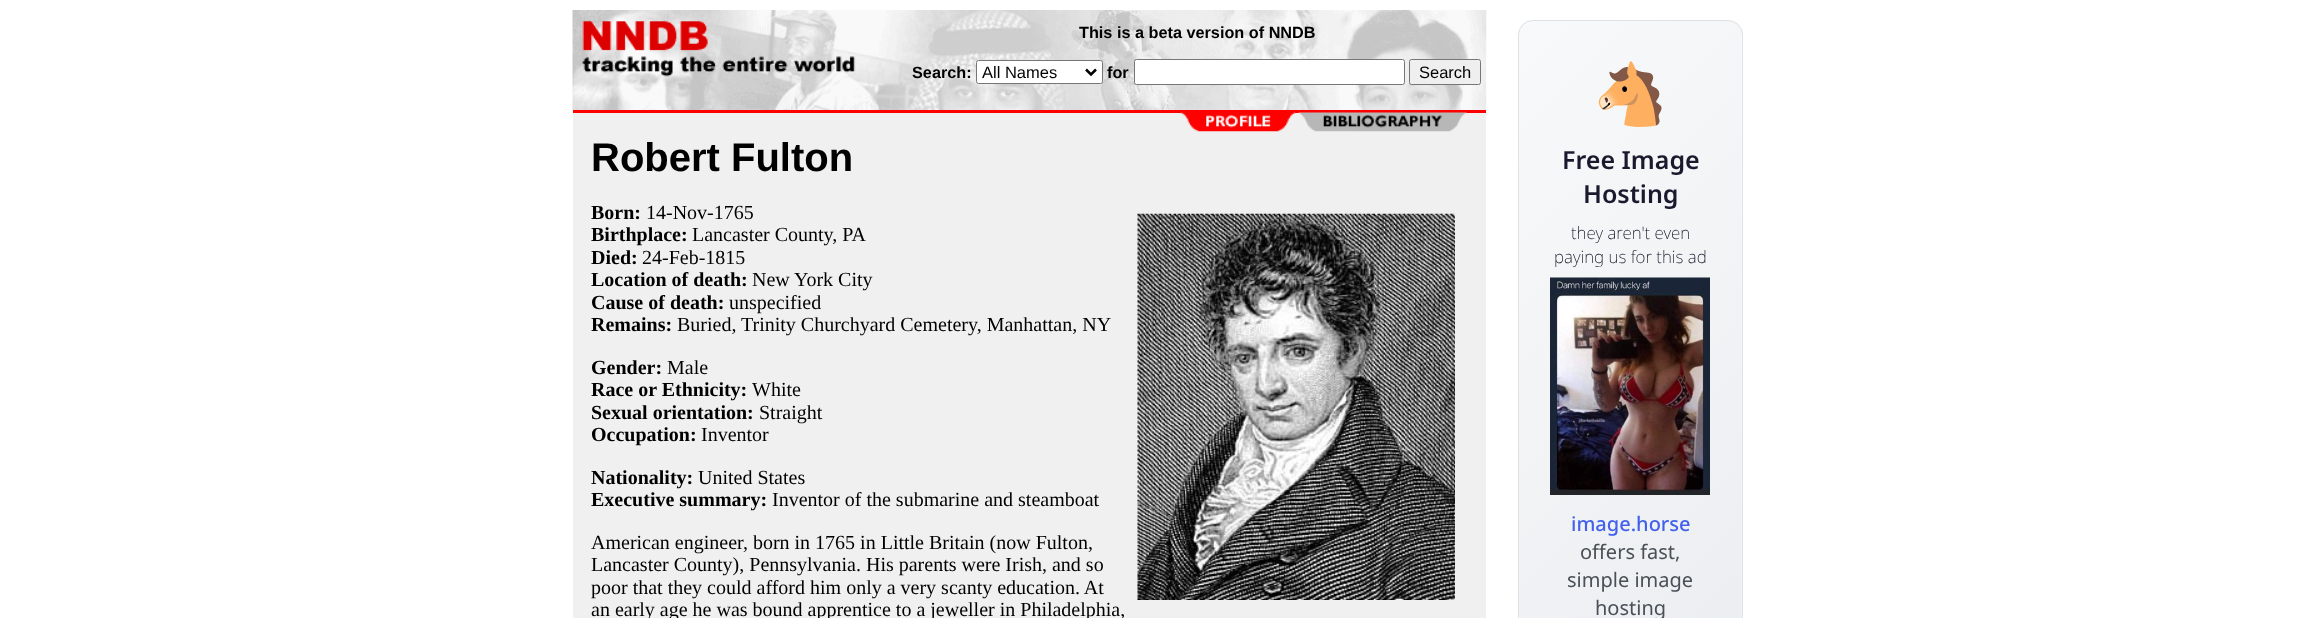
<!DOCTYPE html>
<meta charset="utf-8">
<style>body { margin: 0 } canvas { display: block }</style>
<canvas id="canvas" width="2315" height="618"></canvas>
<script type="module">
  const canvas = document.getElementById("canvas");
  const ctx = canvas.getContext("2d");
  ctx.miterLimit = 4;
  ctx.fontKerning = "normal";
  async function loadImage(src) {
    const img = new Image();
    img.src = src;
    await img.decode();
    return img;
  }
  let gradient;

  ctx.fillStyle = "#ffffff";
  ctx.fillRect(0, 0, 2315, 618);
  ctx.drawImage(await loadImage("img1.png"), 572, 10, 915, 100);
  ctx.drawImage(await loadImage("img2.png"), 582, 21, 274, 56);
  ctx.font = "bold 16.25px Liberation Sans";
  ctx.fillStyle = "#000000";
  ctx.fillText("This is a beta version of NNDB", 1079, 38);
  ctx.fillText("Search:", 912, 78);
  ctx.fillStyle = "#ffffff";
  ctx.beginPath();
  ctx.roundRect(976.5, 60.5, 126, 23, 2);
  ctx.fill();
  ctx.strokeStyle = "#767676";
  ctx.stroke();
  ctx.beginPath();
  ctx.moveTo(1086, 69.5);
  ctx.lineTo(1091, 74.5);
  ctx.lineTo(1096, 69.5);
  ctx.strokeStyle = "#000000";
  ctx.lineWidth = 2.5;
  ctx.stroke();
  ctx.font = "16.5px Liberation Sans";
  ctx.fillStyle = "#000000";
  ctx.fillText("All Names", 982, 78);
  ctx.font = "bold 16.25px Liberation Sans";
  ctx.fillText("for", 1107, 78);
  ctx.fillStyle = "#ffffff";
  ctx.beginPath();
  ctx.roundRect(1134.5, 59.5, 270, 25, 2);
  ctx.fill();
  ctx.strokeStyle = "#767676";
  ctx.lineWidth = 1;
  ctx.stroke();
  ctx.fillStyle = "#efefef";
  ctx.beginPath();
  ctx.roundRect(1409.5, 59.5, 71, 25, 2);
  ctx.fill();
  ctx.stroke();
  ctx.font = "16.5px Liberation Sans";
  ctx.fillStyle = "#000000";
  ctx.fillText("Search", 1419, 78);
  ctx.fillStyle = "#ff0000";
  ctx.fillRect(573, 110, 913, 3);
  ctx.fillStyle = "#f0f0f0";
  ctx.fillRect(573, 113, 913, 505);
  ctx.drawImage(await loadImage("img3.png"), 1181, 112, 286, 20);
  ctx.font = "bold 40px Liberation Sans";
  ctx.fillStyle = "#000000";
  ctx.fillText("Robert Fulton", 591, 171);
  ctx.font = "bold 20px Liberation Serif";
  ctx.fillText("Born:", 591, 219);
  ctx.font = "20px Liberation Serif";
  ctx.fillText("14-Nov-1765", 646, 219);
  ctx.drawImage(await loadImage("img4.png"), 1137, 213, 318, 387);
  ctx.font = "bold 20px Liberation Serif";
  ctx.fillText("Birthplace:", 591, 241);
  ctx.font = "20px Liberation Serif";
  ctx.fillText("Lancaster County, PA", 692, 241);
  ctx.font = "bold 20px Liberation Serif";
  ctx.fillText("Died:", 591, 264);
  ctx.font = "20px Liberation Serif";
  ctx.fillText("24-Feb-1815", 642, 264);
  ctx.font = "bold 20px Liberation Serif";
  ctx.fillText("Location of death:", 591, 286);
  ctx.font = "20px Liberation Serif";
  ctx.fillText("New York City", 752, 286);
  ctx.font = "bold 20px Liberation Serif";
  ctx.fillText("Cause of death:", 591, 309);
  ctx.font = "20px Liberation Serif";
  ctx.fillText("unspecified", 729, 309);
  ctx.font = "bold 20px Liberation Serif";
  ctx.fillText("Remains:", 591, 331);
  ctx.font = "20px Liberation Serif";
  ctx.fillText("Buried,", 677, 331);
  ctx.fillText("Trinity Churchyard Cemetery, Manhattan, NY", 741, 331);
  ctx.font = "bold 20px Liberation Serif";
  ctx.fillText("Gender:", 591, 374);
  ctx.font = "20px Liberation Serif";
  ctx.fillText("Male", 667, 374);
  ctx.font = "bold 20px Liberation Serif";
  ctx.fillText("Race or Ethnicity:", 591, 396);
  ctx.font = "20px Liberation Serif";
  ctx.fillText("White", 752, 396);
  ctx.font = "bold 20px Liberation Serif";
  ctx.fillText("Sexual orientation:", 591, 419);
  ctx.font = "20px Liberation Serif";
  ctx.fillText("Straight", 759, 419);
  ctx.font = "bold 20px Liberation Serif";
  ctx.fillText("Occupation:", 591, 441);
  ctx.font = "20px Liberation Serif";
  ctx.fillText("Inventor", 701, 441);
  ctx.font = "bold 20px Liberation Serif";
  ctx.fillText("Nationality:", 591, 484);
  ctx.font = "20px Liberation Serif";
  ctx.fillText("United States", 698, 484);
  ctx.font = "bold 20px Liberation Serif";
  ctx.fillText("Executive summary:", 591, 506);
  ctx.font = "20px Liberation Serif";
  ctx.fillText("Inventor of the submarine and steamboat", 772, 506);
  ctx.fillText("American engineer, born in 1765 in Little Britain (now Fulton,", 591, 549);
  ctx.fillText("Lancaster County), Pennsylvania. His parents were Irish, and so", 591, 571);
  ctx.fillText("poor that they could afford him only a very scanty education. At", 591, 594);
  ctx.fillText("an early age he was bound apprentice to a jeweller in Philadelphia,", 591, 616);
  ctx.save();
  ctx.beginPath();
  ctx.roundRect(1518, 20, 225, 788, 15);
  ctx.clip();
  gradient = ctx.createLinearGradient(1378, 162, 1882, 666);
  gradient.addColorStop(0, "#f8f9fa");
  gradient.addColorStop(1, "#e9ecef");
  ctx.fillStyle = gradient;
  ctx.fillRect(1519, 21, 222, 597);
  gradient = ctx.createLinearGradient(1601, 162, 2104, 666);
  gradient.addColorStop(0, "#f8f9fa");
  gradient.addColorStop(1, "#e9ecef");
  ctx.fillStyle = gradient;
  ctx.fillRect(1741, 21, 2, 597);
  ctx.restore();
  ctx.beginPath();
  ctx.roundRect(1518.5, 20.5, 224, 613, 14.5);
  ctx.strokeStyle = "#dee2e6";
  ctx.stroke();
  ctx.font = "60px Noto Color Emoji";
  ctx.fillStyle = "#0000ee";
  ctx.fillText("🐴", 1593, 115);
  ctx.font = "600 25px Noto Sans";
  ctx.fillStyle = "#1a1a2e";
  ctx.fillText("Free Image", 1562, 169);
  ctx.fillText("Hosting", 1583, 203);
  ctx.font = "200 17px Noto Sans";
  ctx.fillStyle = "#0a0a1e";
  ctx.fillText("they aren't even", 1571, 239);
  ctx.fillText("paying us for this ad", 1554, 263);
  ctx.drawImage(await loadImage("img5.png"), 1550, 277, 160, 218);
  ctx.font = "500 20px Noto Sans";
  ctx.fillStyle = "#4361ee";
  ctx.fillText("image.horse", 1571, 531);
  ctx.font = "20px Noto Sans";
  ctx.fillStyle = "#495057";
  ctx.fillText("offers fast,", 1580, 559);
  ctx.fillText("simple image", 1567, 587);
  ctx.fillText("hosting", 1595, 615);
</script>
